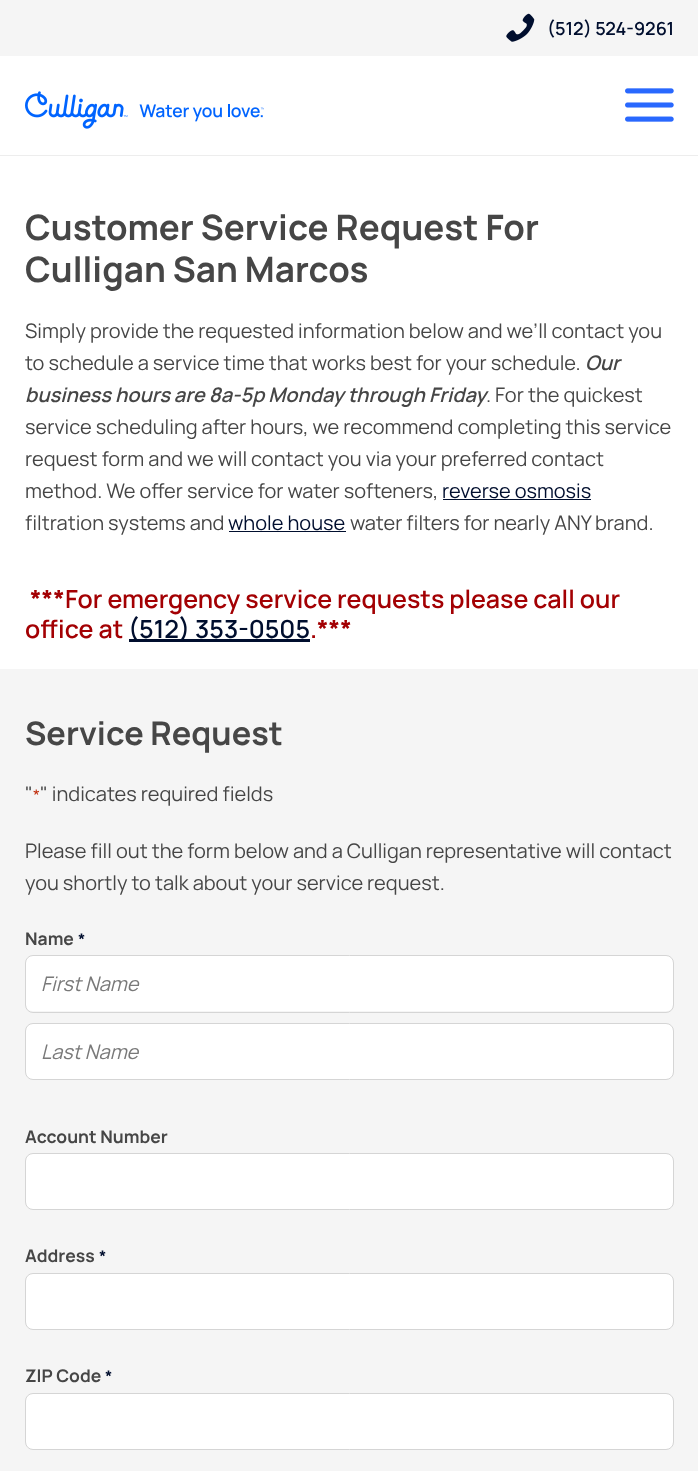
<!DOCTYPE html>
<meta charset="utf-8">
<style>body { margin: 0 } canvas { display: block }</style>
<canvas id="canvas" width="698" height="1471"></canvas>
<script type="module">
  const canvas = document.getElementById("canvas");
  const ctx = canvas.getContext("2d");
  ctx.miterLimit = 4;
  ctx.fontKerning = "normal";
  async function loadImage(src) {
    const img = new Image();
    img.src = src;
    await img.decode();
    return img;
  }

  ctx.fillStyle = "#ffffff";
  ctx.fillRect(0, 0, 698, 1471);
  ctx.fillStyle = "#ededed";
  ctx.fillRect(0, 155, 698, 1);
  ctx.fillStyle = "#f5f5f5";
  ctx.fillRect(0, 0, 698, 56);
  ctx.drawImage(await loadImage("img1.png"), 506, 13, 29, 29);
  ctx.font = "600 18px Manrope";
  ctx.fillStyle = "#000e2e";
  ctx.fillText("(512) 524-9261", 547, 35);
  ctx.drawImage(await loadImage("img2.png"), 25, 91, 239, 38);
  ctx.drawImage(await loadImage("img3.png"), 625, 88, 49, 34);
  ctx.font = "bold 35px Manrope";
  ctx.fillStyle = "#464646";
  ctx.fillText("Customer Service Request For", 25, 240);
  ctx.fillText("Culligan San Marcos", 25, 282);
  ctx.font = "20px Manrope";
  ctx.fillText("Simply provide the requested information below and we’ll contact you", 25, 338);
  ctx.fillText("to schedule a service time that works best for your schedule.", 25, 370);
  ctx.font = "italic 600 20px Manrope";
  ctx.fillText("Our", 585, 370);
  ctx.fillText("business hours are 8a-5p Monday through Friday", 25, 402);
  ctx.font = "20px Manrope";
  ctx.fillText(". For the quickest", 486, 402);
  ctx.fillText("service scheduling after hours, we recommend completing this service", 25, 434);
  ctx.fillText("request form and we will contact you via your preferred contact", 25, 466);
  ctx.fillText("method. We offer service for water softeners,", 25, 498);
  ctx.fillStyle = "#000e2e";
  ctx.fillText("reverse osmosis", 442, 498);
  ctx.fillRect(443, 499, 148, 1);
  ctx.fillStyle = "#464646";
  ctx.fillText("filtration systems and", 25, 530);
  ctx.fillStyle = "#000e2e";
  ctx.fillText("whole house", 228, 530);
  ctx.fillRect(229, 531, 117, 1);
  ctx.fillStyle = "#464646";
  ctx.fillText("water filters for nearly ANY brand.", 350, 530);
  ctx.font = "bold 25px Manrope";
  ctx.fillStyle = "#a30003";
  ctx.fillText("***", 30, 608);
  ctx.font = "600 25px Manrope";
  ctx.fillText("For emergency service requests please call our", 65, 608);
  ctx.fillText("office at", 25, 638);
  ctx.fillStyle = "#000e2e";
  ctx.fillRect(129, 639, 181, 3);
  ctx.fillText("(512) 353-0505", 128, 638);
  ctx.font = "bold 25px Manrope";
  ctx.fillStyle = "#a30003";
  ctx.fillText("***", 317, 638);
  ctx.font = "600 25px Manrope";
  ctx.fillText(".", 310, 638);
  ctx.fillStyle = "#f5f5f5";
  ctx.fillRect(0, 669, 698, 802);
  ctx.font = "bold 32.5px Manrope";
  ctx.fillStyle = "#464646";
  ctx.fillText("Service Request", 25, 745);
  ctx.font = "20px Manrope";
  ctx.fillText("\"", 25, 801);
  ctx.font = "16px Manrope";
  ctx.fillStyle = "#c02b0a";
  ctx.fillText("*", 33, 801);
  ctx.font = "20px Manrope";
  ctx.fillStyle = "#464646";
  ctx.fillText("\" indicates required fields", 40, 801);
  ctx.fillText("Please fill out the form below and a Culligan representative will contact", 25, 858);
  ctx.fillText("you shortly to talk about your service request.", 25, 890);
  ctx.font = "bold 17.5px Manrope";
  ctx.fillText("Name", 25, 945);
  ctx.font = "bold 16px Manrope";
  ctx.fillStyle = "#000e2e";
  ctx.fillText("*", 78, 945);
  ctx.fillStyle = "#ffffff";
  ctx.beginPath();
  ctx.roundRect(26, 956, 647, 55, 6);
  ctx.fill();
  ctx.beginPath();
  ctx.roundRect(25.5, 955.5, 648, 57, 7.5);
  ctx.strokeStyle = "#d5d5d5";
  ctx.stroke();
  ctx.font = "italic 20px Manrope";
  ctx.fillStyle = "#797979";
  ctx.fillText("First Name", 41, 991);
  ctx.fillStyle = "#ffffff";
  ctx.beginPath();
  ctx.roundRect(26, 1024, 647, 55, 6);
  ctx.fill();
  ctx.beginPath();
  ctx.roundRect(25.5, 1023.5, 648, 56, 7.5);
  ctx.stroke();
  ctx.fillStyle = "#797979";
  ctx.fillText("Last Name", 41, 1059);
  ctx.font = "bold 17.5px Manrope";
  ctx.fillStyle = "#464646";
  ctx.fillText("Account Number", 25, 1143);
  ctx.fillStyle = "#ffffff";
  ctx.beginPath();
  ctx.roundRect(26, 1154, 647, 55, 6);
  ctx.fill();
  ctx.beginPath();
  ctx.roundRect(25.5, 1153.5, 648, 56, 7.5);
  ctx.stroke();
  ctx.fillStyle = "#464646";
  ctx.fillText("Address", 25, 1262);
  ctx.font = "bold 16px Manrope";
  ctx.fillStyle = "#000e2e";
  ctx.fillText("*", 99, 1262);
  ctx.fillStyle = "#ffffff";
  ctx.beginPath();
  ctx.roundRect(26, 1274, 647, 55, 6);
  ctx.fill();
  ctx.beginPath();
  ctx.roundRect(25.5, 1273.5, 648, 56, 7.5);
  ctx.stroke();
  ctx.font = "bold 17.5px Manrope";
  ctx.fillStyle = "#464646";
  ctx.fillText("ZIP Code", 25, 1382);
  ctx.font = "bold 16px Manrope";
  ctx.fillStyle = "#000e2e";
  ctx.fillText("*", 105, 1382);
  ctx.fillStyle = "#ffffff";
  ctx.beginPath();
  ctx.roundRect(26, 1394, 647, 55, 6);
  ctx.fill();
  ctx.beginPath();
  ctx.roundRect(25.5, 1393.5, 648, 56, 7.5);
  ctx.stroke();
</script>
